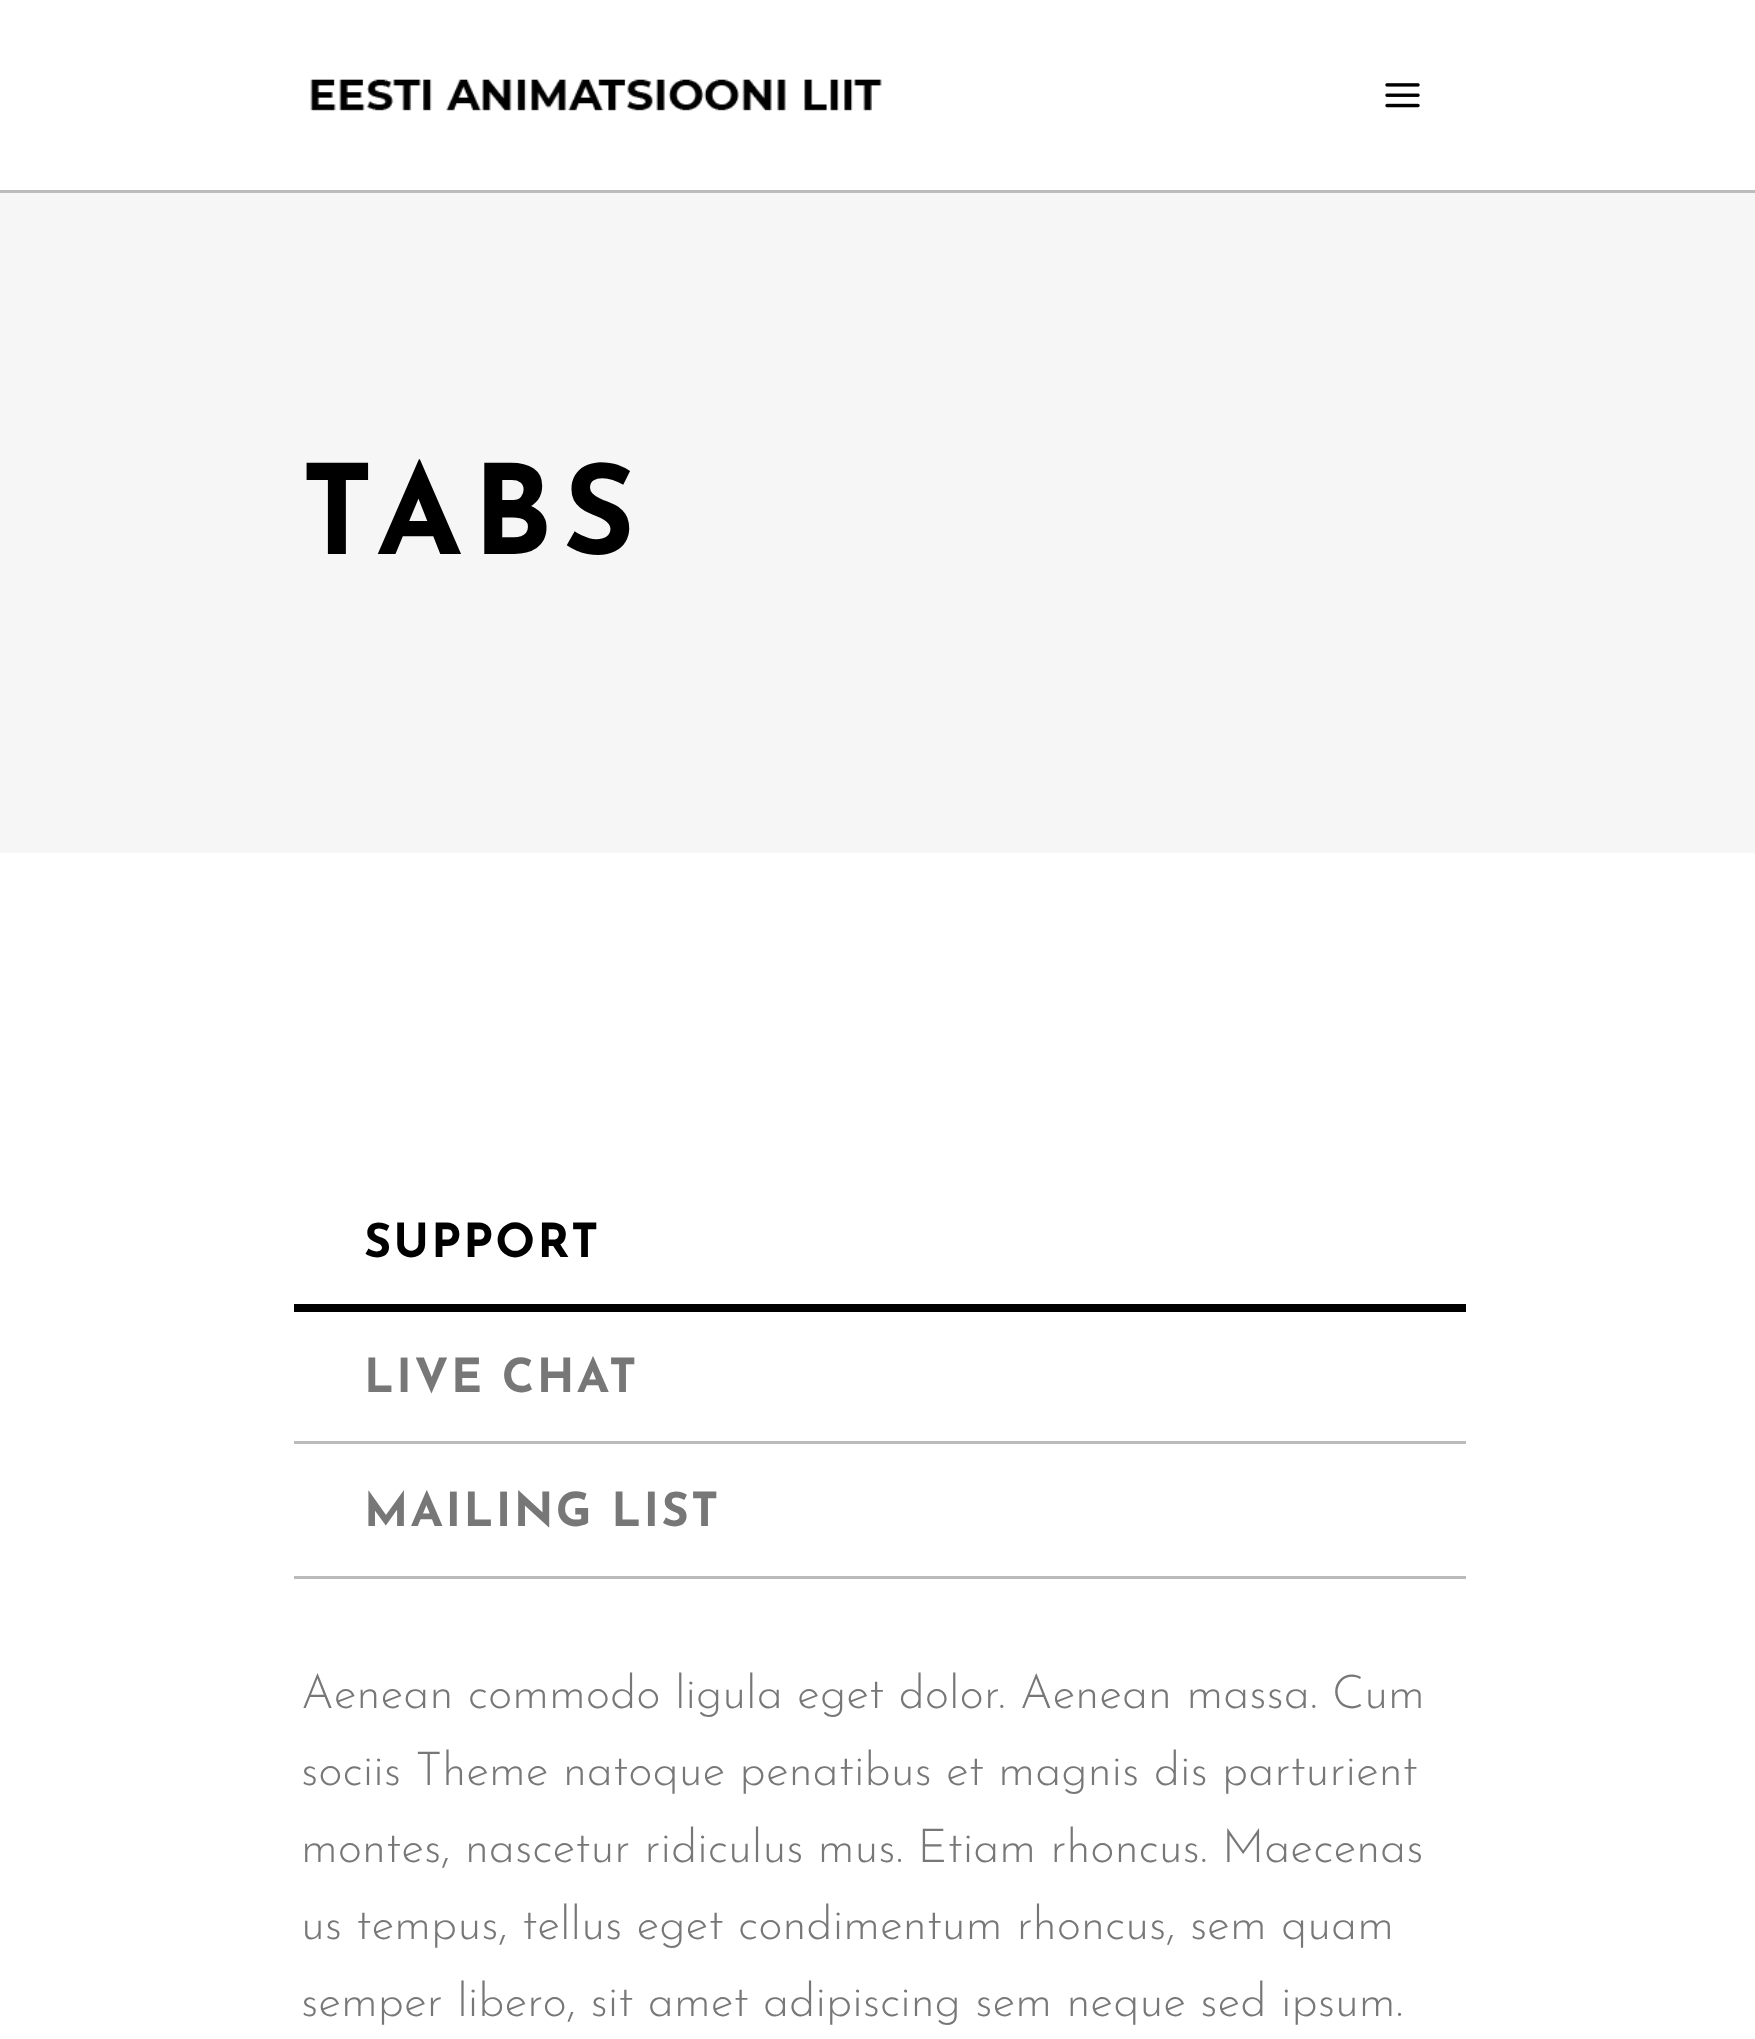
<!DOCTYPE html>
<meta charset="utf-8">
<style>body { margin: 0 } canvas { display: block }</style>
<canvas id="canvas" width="1755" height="2039"></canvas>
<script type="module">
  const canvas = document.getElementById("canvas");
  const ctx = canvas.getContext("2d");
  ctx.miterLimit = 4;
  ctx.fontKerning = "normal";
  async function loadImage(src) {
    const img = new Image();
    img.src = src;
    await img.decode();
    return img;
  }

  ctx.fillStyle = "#ffffff";
  ctx.fillRect(0, 0, 1755, 2039);
  ctx.fillStyle = "#bbbbbb";
  ctx.fillRect(0, 190, 1755, 3);
  ctx.drawImage(await loadImage("img1.png"), 310, 79, 572, 32);
  ctx.drawImage(await loadImage("img2.png"), 1385, 83, 35, 25);
  ctx.fillStyle = "#f6f6f6";
  ctx.fillRect(0, 193, 1755, 660);
  ctx.letterSpacing = "10px";
  ctx.font = "bold 124px Josefin Sans";
  ctx.fillStyle = "#000000";
  ctx.fillText("TABS", 301, 554);
  ctx.letterSpacing = "2.3px";
  ctx.font = "bold 46.75px Josefin Sans";
  ctx.fillText("SUPPORT", 364, 1257);
  ctx.fillRect(294, 1304, 1172, 8);
  ctx.fillStyle = "#bbbbbb";
  ctx.fillRect(294, 1441, 1172, 3);
  ctx.fillStyle = "#777777";
  ctx.fillText("LIVE CHAT", 364, 1392);
  ctx.fillStyle = "#bbbbbb";
  ctx.fillRect(294, 1576, 1172, 3);
  ctx.fillStyle = "#777777";
  ctx.fillText("MAILING LIST", 364, 1526);
  ctx.letterSpacing = "0px";
  ctx.font = "300 46.75px Josefin Sans";
  ctx.fillText("Aenean commodo ligula eget dolor. Aenean massa. Cum", 301, 1708);
  ctx.fillText("sociis Theme natoque penatibus et magnis dis parturient", 301, 1785);
  ctx.fillText("montes, nascetur ridiculus mus. Etiam rhoncus. Maecenas", 301, 1862);
  ctx.fillText("us tempus, tellus eget condimentum rhoncus, sem quam", 301, 1939);
  ctx.fillText("semper libero, sit amet adipiscing sem neque sed ipsum.", 301, 2016);
</script>
